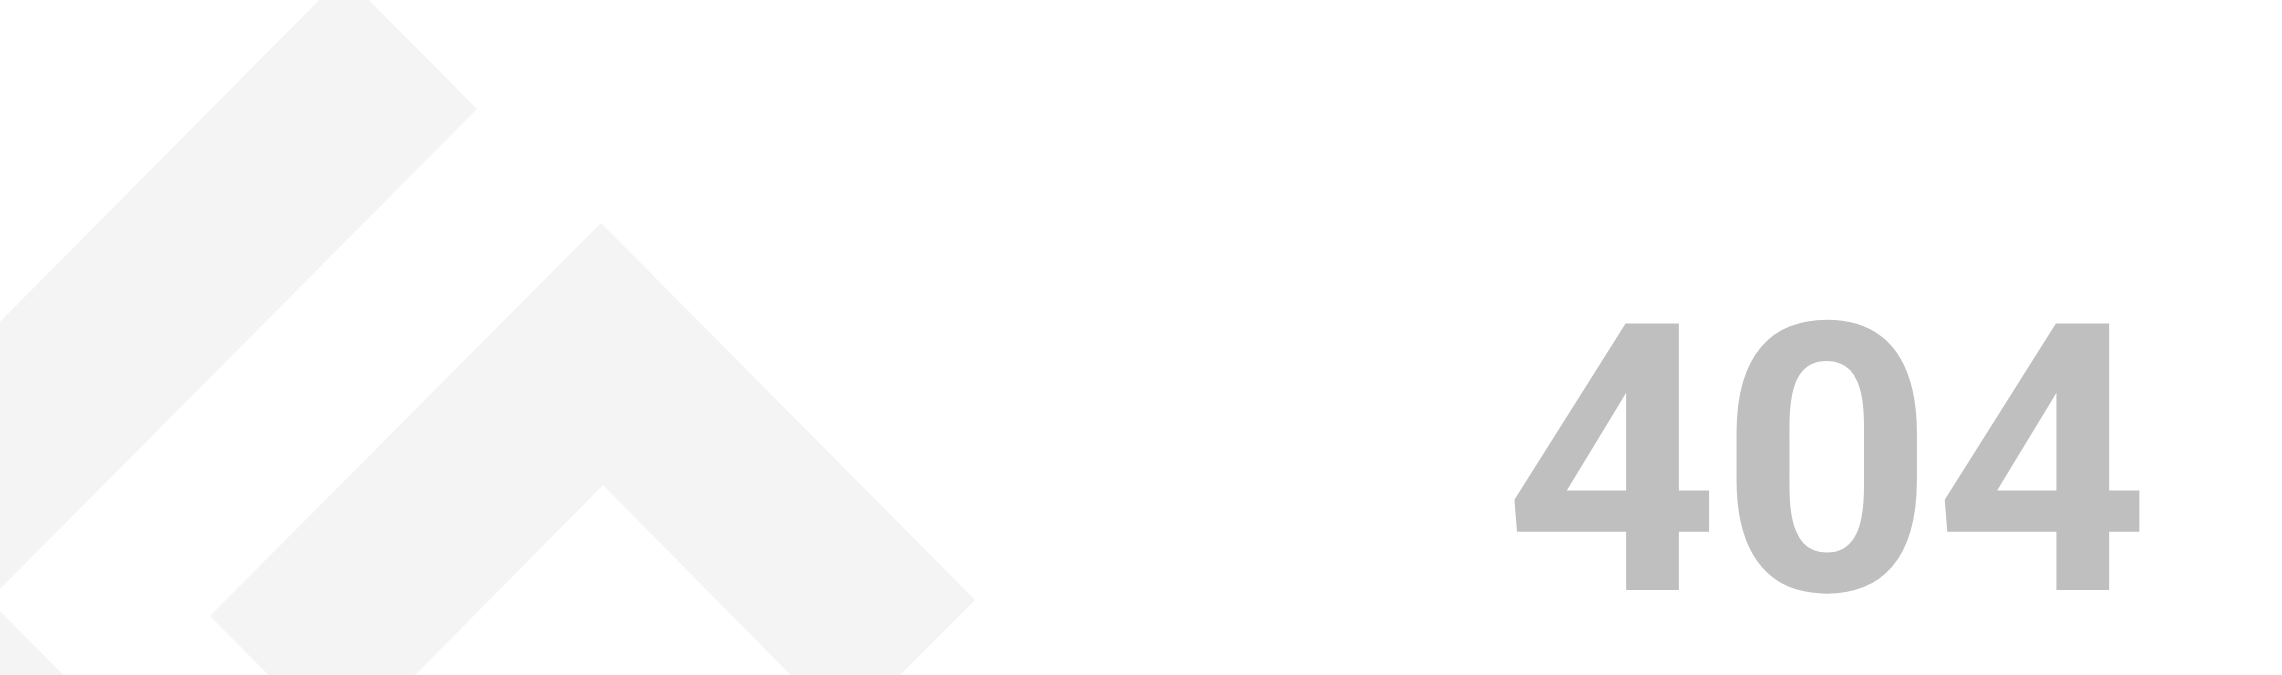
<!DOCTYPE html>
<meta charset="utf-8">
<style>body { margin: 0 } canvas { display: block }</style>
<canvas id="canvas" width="2282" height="675"></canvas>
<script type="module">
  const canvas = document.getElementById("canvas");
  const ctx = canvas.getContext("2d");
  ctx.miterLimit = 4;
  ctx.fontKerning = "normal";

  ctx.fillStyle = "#ffffff";
  ctx.fillRect(0, 0, 2282, 675);
  ctx.fillStyle = "#f4f4f4";
  ctx.beginPath();
  ctx.moveTo(-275, 599);
  ctx.lineTo(344, -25);
  ctx.lineTo(477, 109);
  ctx.lineTo(-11, 600);
  ctx.lineTo(479, 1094);
  ctx.lineTo(347, 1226);
  ctx.closePath();
  ctx.fill();
  ctx.beginPath();
  ctx.moveTo(975, 600);
  ctx.lineTo(845, 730);
  ctx.lineTo(603, 485);
  ctx.lineTo(342, 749);
  ctx.lineTo(210, 616);
  ctx.lineTo(601, 223);
  ctx.closePath();
  ctx.fill();
  ctx.font = "bold 375px Roboto";
  ctx.fillStyle = "#bfbfbf";
  ctx.fillText("404", 1504, 590);
</script>
